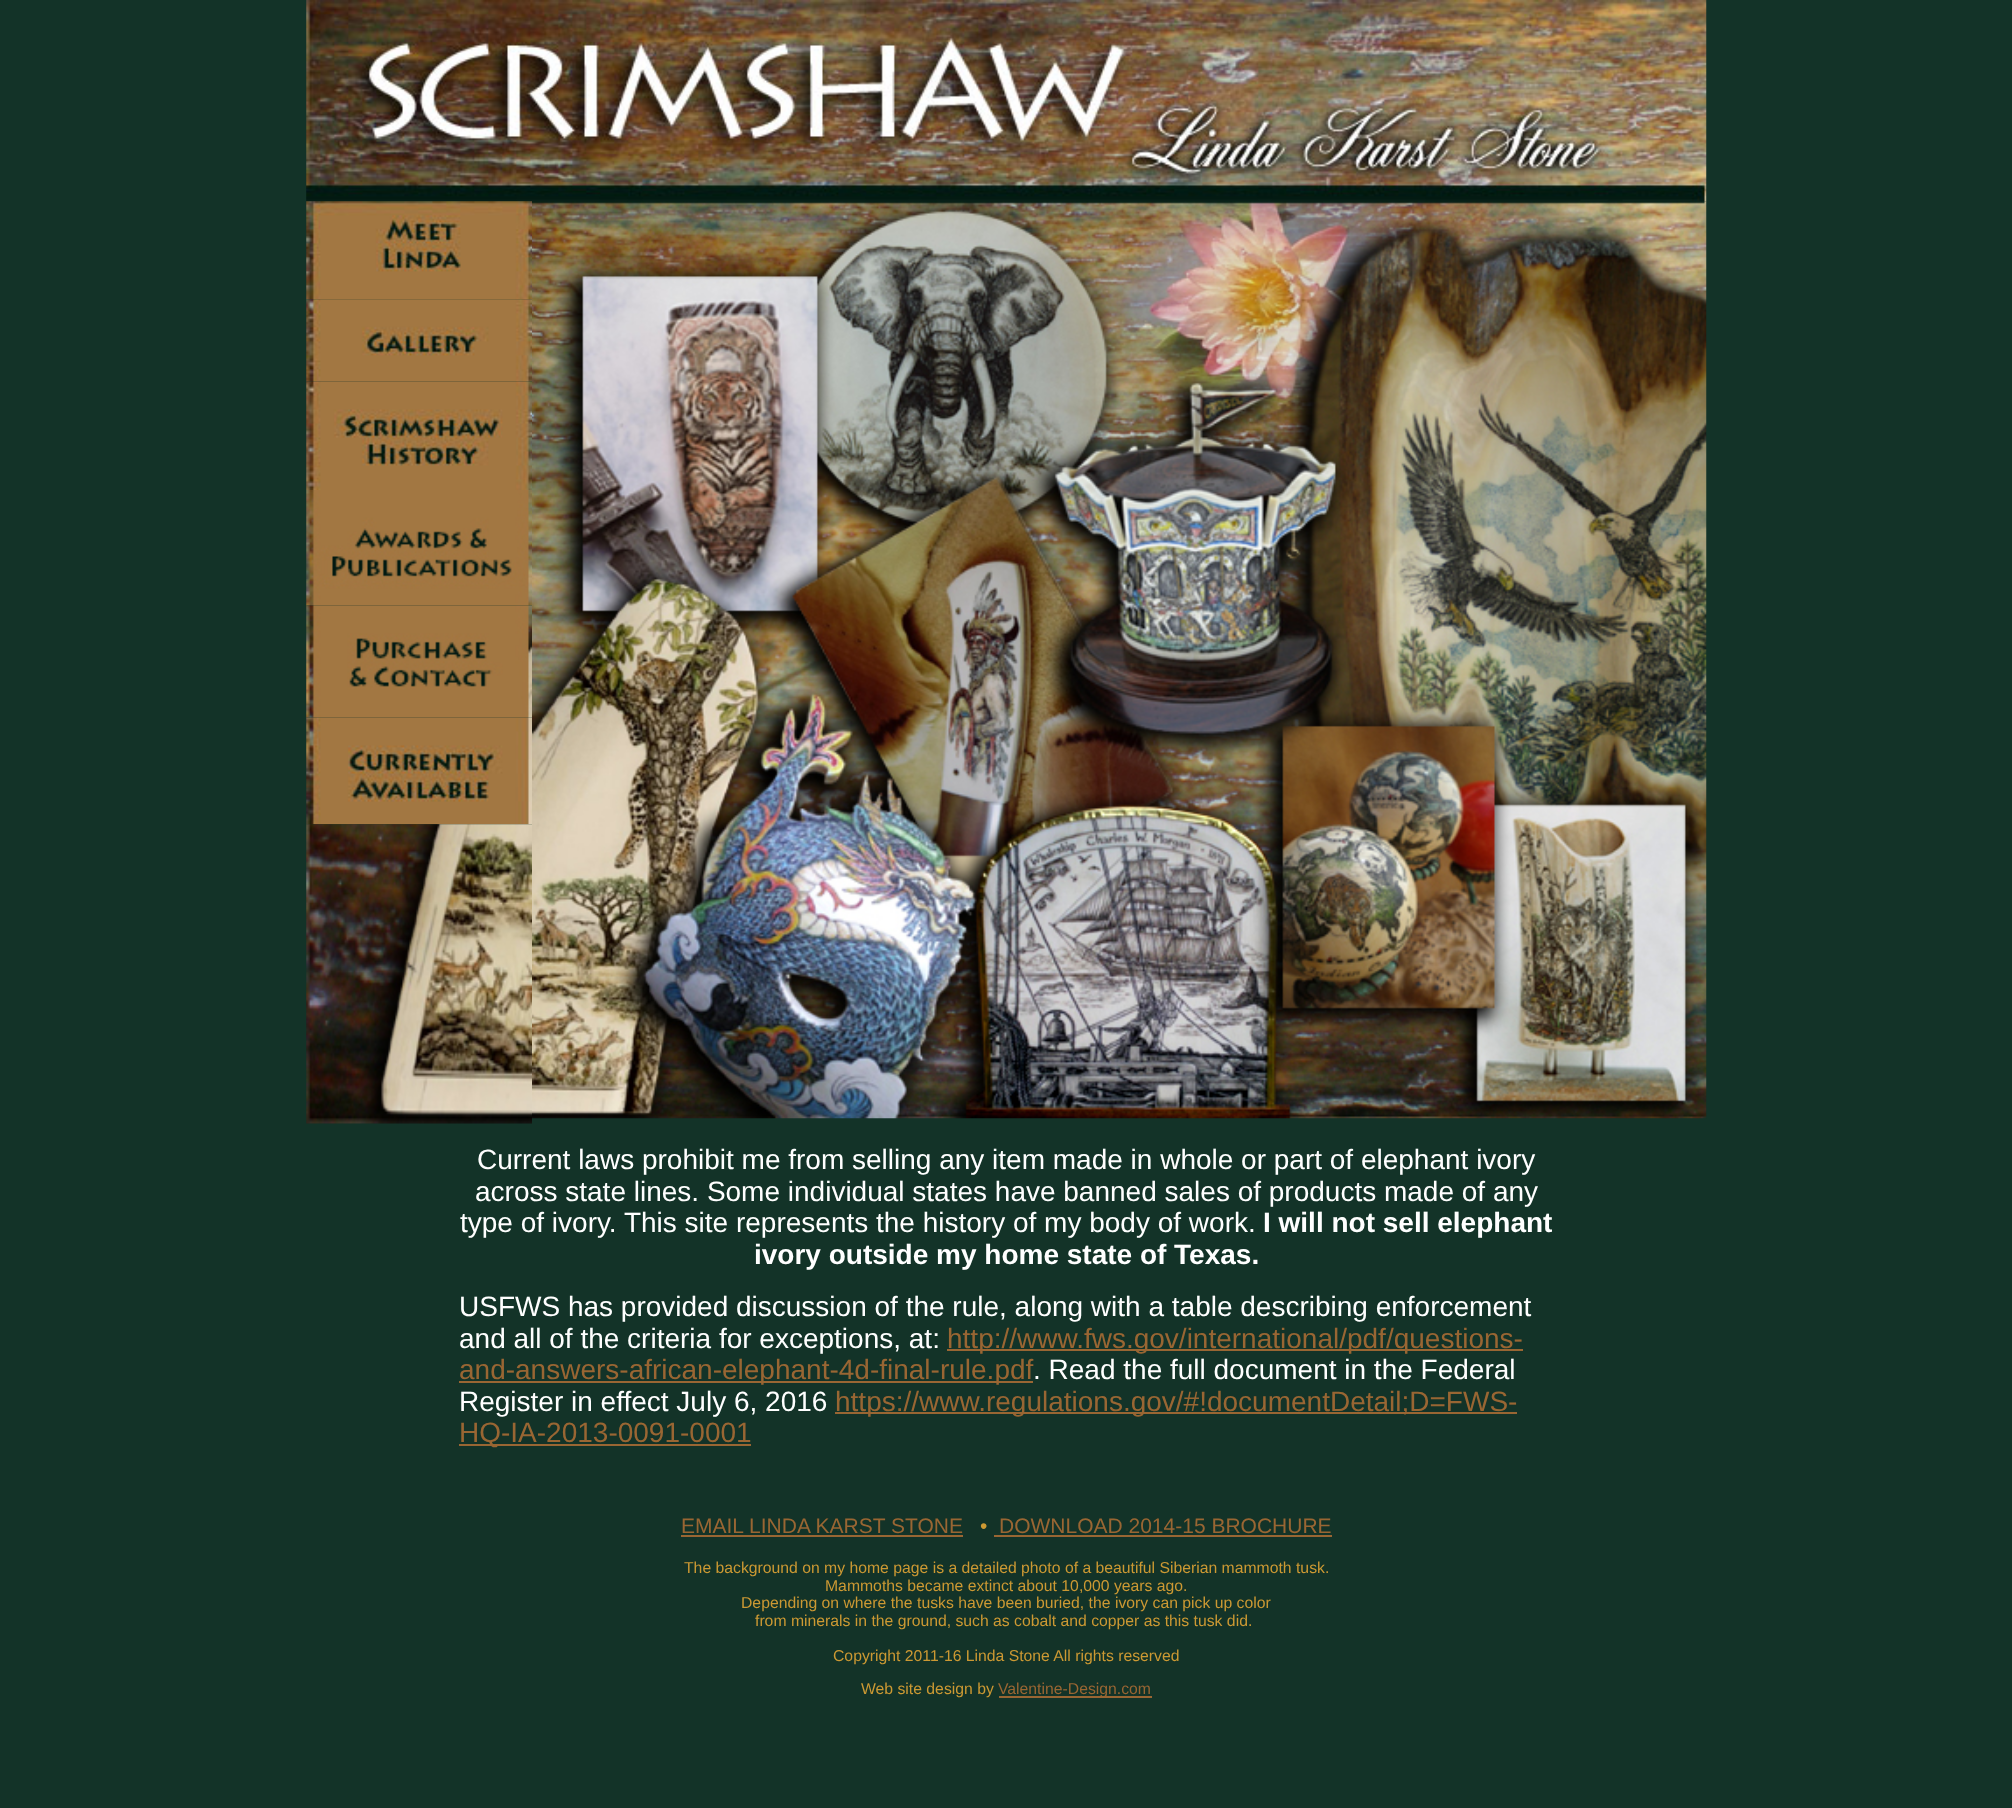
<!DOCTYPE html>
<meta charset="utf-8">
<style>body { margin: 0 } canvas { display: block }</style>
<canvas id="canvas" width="2012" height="1808"></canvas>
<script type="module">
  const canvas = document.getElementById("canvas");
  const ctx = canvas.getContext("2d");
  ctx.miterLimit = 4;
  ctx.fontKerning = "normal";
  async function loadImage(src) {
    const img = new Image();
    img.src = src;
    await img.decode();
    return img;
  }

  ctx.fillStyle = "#133328";
  ctx.fillRect(0, 0, 2012, 1808);
  ctx.drawImage(await loadImage("img1.png"), 306, 0, 1401, 202);
  ctx.drawImage(await loadImage("img2.png"), 306, 201, 226, 99);
  ctx.drawImage(await loadImage("img3.png"), 306, 299, 226, 83);
  ctx.drawImage(await loadImage("img4.png"), 306, 381, 226, 109);
  ctx.drawImage(await loadImage("img5.png"), 306, 490, 226, 116);
  ctx.drawImage(await loadImage("img6.png"), 306, 605, 226, 113);
  ctx.drawImage(await loadImage("img7.png"), 306, 717, 226, 108);
  ctx.drawImage(await loadImage("img8.png"), 306, 824, 226, 300);
  ctx.drawImage(await loadImage("img9.png"), 532, 201, 1175, 918);
  ctx.font = "28px Liberation Sans";
  ctx.fillStyle = "#ffffff";
  ctx.fillText("Current laws prohibit me from selling any item made in whole or part of elephant ivory", 477, 1169);
  ctx.fillText("across state lines. Some individual states have banned sales of products made of any", 475, 1201);
  ctx.fillText("type of ivory. This site represents the history of my body of work.", 460, 1232);
  ctx.font = "bold 28px Liberation Sans";
  ctx.fillText("I will not sell elephant", 1263, 1232);
  ctx.fillText("ivory outside my home state of Texas.", 754, 1264);
  ctx.font = "28px Liberation Sans";
  ctx.fillText("USFWS has provided discussion of the rule, along with a table describing enforcement", 459, 1316);
  ctx.fillText("and all of the criteria for exceptions, at:", 459, 1348);
  ctx.fillStyle = "#996633";
  ctx.fillRect(947, 1349, 576, 2);
  ctx.fillText("http://www.fws.gov/international/pdf/questions-", 947, 1348);
  ctx.fillRect(459, 1381, 574, 2);
  ctx.fillText("and-answers-african-elephant-4d-final-rule.pdf", 459, 1379);
  ctx.fillStyle = "#ffffff";
  ctx.fillText(". Read the full document in the Federal", 1033, 1379);
  ctx.fillText("Register in effect July 6, 2016", 459, 1411);
  ctx.fillStyle = "#996633";
  ctx.fillRect(835, 1412, 682, 2);
  ctx.fillText("https://www.regulations.gov/#!documentDetail;D=FWS-", 835, 1411);
  ctx.fillRect(459, 1444, 292, 2);
  ctx.fillText("HQ-IA-2013-0091-0001", 459, 1442);
  ctx.font = "21px Liberation Sans";
  ctx.fillText("EMAIL LINDA KARST STONE", 681, 1533);
  ctx.fillRect(681, 1535, 282, 2);
  ctx.fillStyle = "#cc9933";
  ctx.fillText("•", 980, 1533);
  ctx.fillStyle = "#996633";
  ctx.fillText("DOWNLOAD 2014-15 BROCHURE", 999, 1533);
  ctx.fillRect(994, 1535, 338, 2);
  ctx.font = "15.75px Liberation Sans";
  ctx.fillStyle = "#cc9933";
  ctx.fillText("The background on my home page is a detailed photo of a beautiful Siberian mammoth tusk.", 684, 1573);
  ctx.fillText("Mammoths became extinct about 10,000 years ago.", 825, 1591);
  ctx.fillText("Depending on where the tusks have been buried, the ivory can pick up color", 741, 1608);
  ctx.fillText("from minerals in the ground, such as cobalt and copper as this tusk did.", 755, 1626);
  ctx.fillText("Copyright 2011-16 Linda Stone All rights reserved", 833, 1661);
  ctx.fillText("Web site design by", 861, 1694);
  ctx.fillStyle = "#996633";
  ctx.fillRect(999, 1696, 153, 2);
  ctx.fillText("Valentine-Design.com", 998, 1694);
</script>
